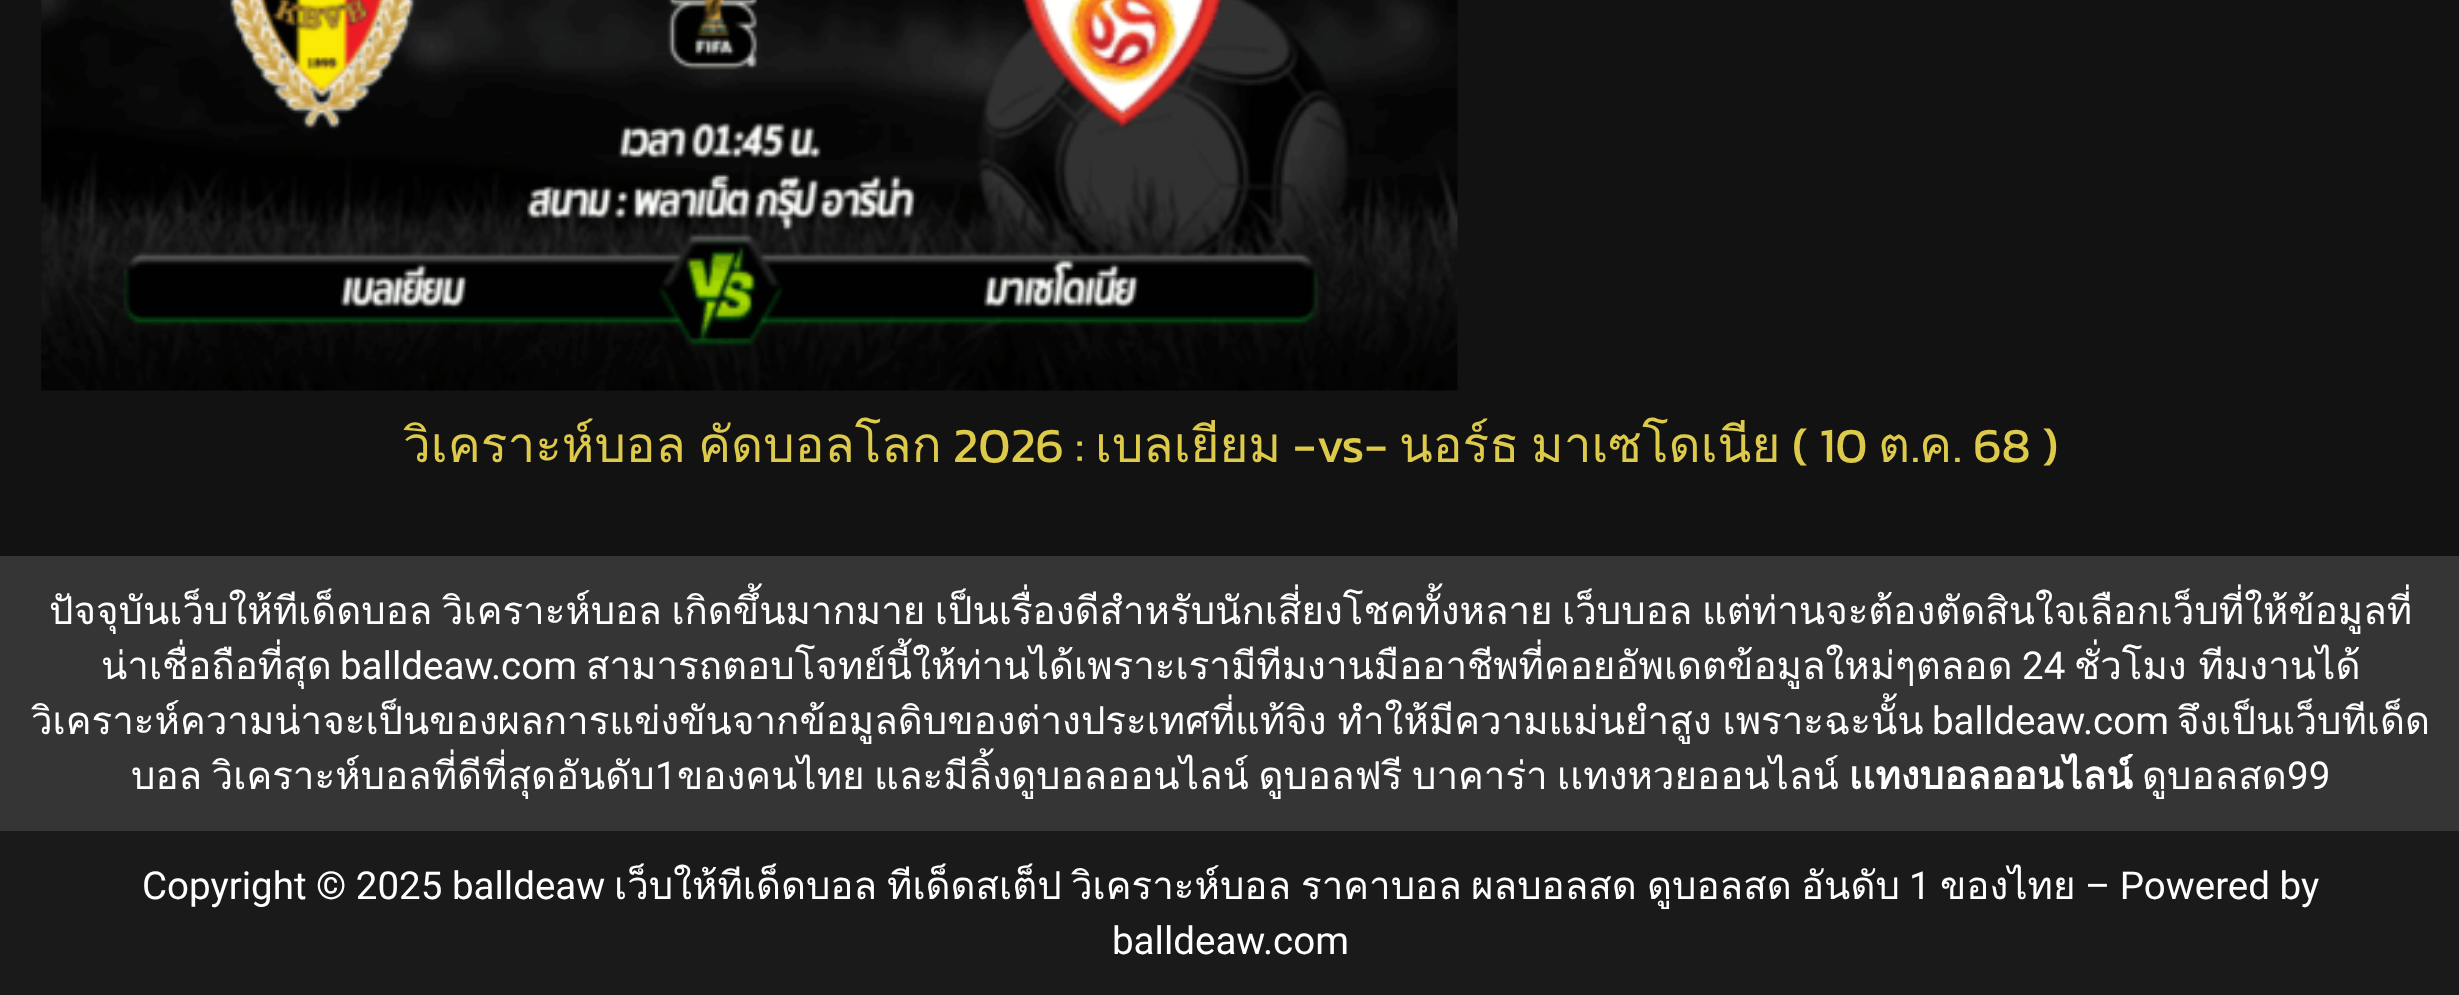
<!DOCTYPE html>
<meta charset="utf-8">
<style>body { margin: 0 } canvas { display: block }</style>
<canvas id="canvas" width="2459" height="995"></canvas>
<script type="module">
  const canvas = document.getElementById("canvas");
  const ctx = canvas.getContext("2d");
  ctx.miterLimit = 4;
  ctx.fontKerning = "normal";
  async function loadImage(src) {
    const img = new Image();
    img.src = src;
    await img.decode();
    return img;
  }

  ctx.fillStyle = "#121212";
  ctx.fillRect(0, 0, 2459, 995);
  ctx.drawImage(await loadImage("img1.png"), 41, 0, 1417, 391);
  ctx.font = "49.5px Loma";
  ctx.fillStyle = "#ddca4b";
  ctx.fillText("วิเคราะห์บอล", 403, 462);
  ctx.fillText("คัดบอลโลก", 698, 462);
  ctx.font = "49.5px Kanit";
  ctx.fillText("2026 :", 953, 462);
  ctx.font = "49.5px Loma";
  ctx.fillText("เบลเยียม", 1095, 462);
  ctx.font = "49.5px Kanit";
  ctx.fillText("-vs-", 1293, 462);
  ctx.font = "49.5px Loma";
  ctx.fillText("นอร์ธ", 1399, 462);
  ctx.fillText("มาเซโดเนีย", 1531, 462);
  ctx.font = "49.5px Kanit";
  ctx.fillText("( 10", 1792, 462);
  ctx.font = "49.5px Loma";
  ctx.fillText("ต", 1878, 462);
  ctx.font = "49.5px Kanit";
  ctx.fillText(".", 1911, 462);
  ctx.font = "49.5px Loma";
  ctx.fillText("ค", 1919, 462);
  ctx.font = "49.5px Kanit";
  ctx.fillText(". 68 )", 1953, 462);
  ctx.fillStyle = "#353535";
  ctx.fillRect(0, 556, 2459, 275);
  ctx.wordSpacing = "-3.5px";
  ctx.font = "38.5px Loma";
  ctx.fillStyle = "#ffffff";
  ctx.fillText("ปัจจุบันเว็บให้ทีเด็ดบอล วิเคราะห์บอล เกิดขึ้นมากมาย เป็นเรื่องดีสำหรับนักเสี่ยงโชคทั้งหลาย", 49, 624);
  ctx.wordSpacing = "0px";
  ctx.fillText("เว็บบอล", 1562, 624);
  ctx.fillText("แต่ท่านจะต้องตัดสินใจเลือกเว็บที่ให้ข้อมูลที่", 1702, 624);
  ctx.fillText("น่าเชื่อถือที่สุด", 101, 679);
  ctx.font = "38.5px Roboto";
  ctx.fillText("balldeaw.com", 340, 679);
  ctx.font = "38.5px Loma";
  ctx.fillText("สามารถตอบโจทย์นี้ให้ท่านได้เพราะเรามีทีมงานมืออาชีพที่คอยอัพเดตข้อมูลใหม่ๆตลอด", 586, 679);
  ctx.font = "38.5px Roboto";
  ctx.fillText("24", 2022, 679);
  ctx.wordSpacing = "-1px";
  ctx.font = "38.5px Loma";
  ctx.fillText("ชั่วโมง ทีมงานได้", 2074, 679);
  ctx.wordSpacing = "-2px";
  ctx.fillText("วิเคราะห์ความน่าจะเป็นของผลการแข่งขันจากข้อมูลดิบของต่างประเทศที่แท้จิง ทำให้มีความแม่นยำสูง เพราะฉะนั้น", 31, 734);
  ctx.wordSpacing = "0px";
  ctx.font = "38.5px Roboto";
  ctx.fillText("balldeaw.com", 1932, 734);
  ctx.font = "38.5px Loma";
  ctx.fillText("จึงเป็นเว็บทีเด็ด", 2177, 734);
  ctx.wordSpacing = "-3.5px";
  ctx.fillText("บอล วิเคราะห์บอลที่ดีที่สุดอันดับ", 131, 789);
  ctx.wordSpacing = "0px";
  ctx.font = "38.5px Roboto";
  ctx.fillText("1", 655, 789);
  ctx.wordSpacing = "-3.5px";
  ctx.font = "38.5px Loma";
  ctx.fillText("ของคนไทย และมีลิ้งดูบอลออนไลน์ ดูบอลฟรี", 677, 789);
  ctx.wordSpacing = "0px";
  ctx.fillText("บาคาร่า", 1412, 789);
  ctx.fillText("เเทงหวยออนไลน์", 1557, 789);
  ctx.font = "bold 38.5px Loma";
  ctx.fillText("เเทงบอลออนไลน์", 1849, 789);
  ctx.font = "38.5px Loma";
  ctx.fillText("ดูบอลสด", 2142, 789);
  ctx.font = "38.5px Roboto";
  ctx.fillText("99", 2287, 789);
  ctx.fillStyle = "#1a1a1a";
  ctx.fillRect(0, 831, 2459, 164);
  ctx.fillStyle = "#ffffff";
  ctx.fillText("Copyright © 2025 balldeaw", 142, 899);
  ctx.font = "38.5px Loma";
  ctx.fillText("เว็บให้ทีเด็ดบอล", 614, 899);
  ctx.fillText("ทีเด็ดสเต็ป", 887, 899);
  ctx.fillText("วิเคราะห์บอล", 1071, 899);
  ctx.fillText("ราคาบอล", 1301, 899);
  ctx.fillText("ผลบอลสด", 1471, 899);
  ctx.fillText("ดูบอลสด", 1647, 899);
  ctx.fillText("อันดับ", 1801, 899);
  ctx.font = "38.5px Roboto";
  ctx.fillText("1", 1909, 899);
  ctx.font = "38.5px Loma";
  ctx.fillText("ของไทย", 1940, 899);
  ctx.font = "38.5px Roboto";
  ctx.fillText("– Powered by", 2085, 899);
  ctx.fillText("balldeaw.com", 1112, 954);
</script>
